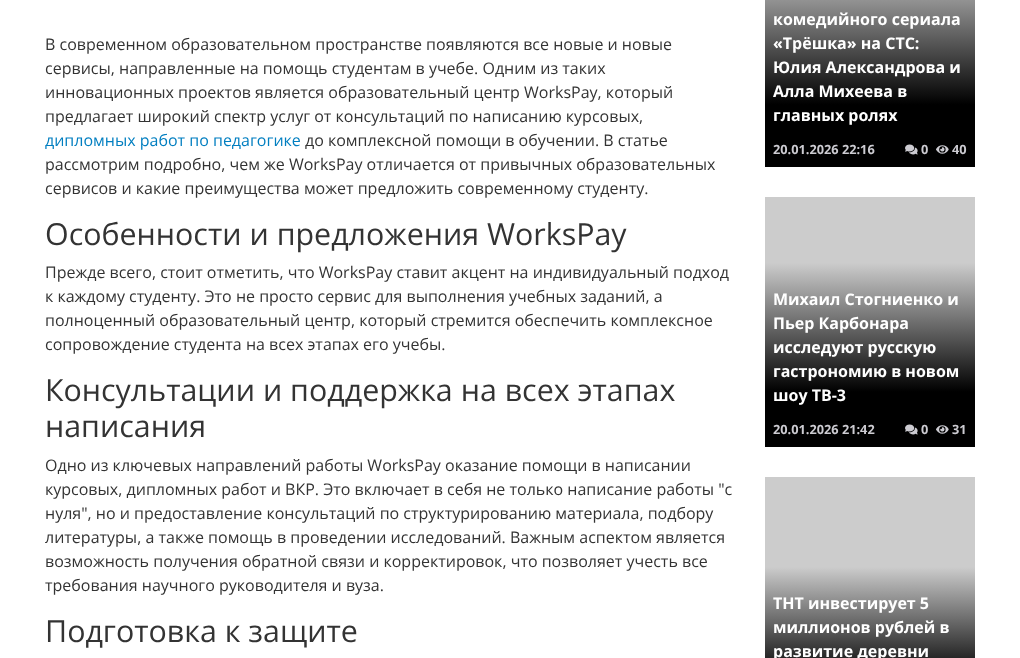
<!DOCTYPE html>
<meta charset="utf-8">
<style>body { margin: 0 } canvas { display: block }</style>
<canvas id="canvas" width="1020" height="658"></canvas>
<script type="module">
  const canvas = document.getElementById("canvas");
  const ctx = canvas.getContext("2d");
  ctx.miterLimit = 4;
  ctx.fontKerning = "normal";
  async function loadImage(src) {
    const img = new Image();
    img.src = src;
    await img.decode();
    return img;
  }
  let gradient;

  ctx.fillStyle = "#ffffff";
  ctx.fillRect(0, 0, 1020, 658);
  ctx.font = "16px Open Sans";
  ctx.fillStyle = "#333333";
  ctx.fillText("В современном образовательном пространстве появляются все новые и новые", 45, 50);
  ctx.fillText("сервисы, направленные на помощь студентам в учебе. Одним из таких", 45, 74);
  ctx.fillText("инновационных проектов является образовательный центр WorksPay, который", 45, 98);
  ctx.fillText("предлагает широкий спектр услуг от консультаций по написанию курсовых,", 45, 122);
  ctx.fillStyle = "#007ec0";
  ctx.fillText("дипломных работ по педагогике", 45, 146);
  ctx.fillStyle = "#333333";
  ctx.fillText("до комплексной помощи в обучении. В статье", 305, 146);
  ctx.fillText("рассмотрим подробно, чем же WorksPay отличается от привычных образовательных", 45, 170);
  ctx.fillText("сервисов и какие преимущества может предложить современному студенту.", 45, 194);
  ctx.font = "30.4px Open Sans";
  ctx.fillText("Особенности и предложения WorksPay", 45, 245);
  ctx.font = "16px Open Sans";
  ctx.fillText("Прежде всего, стоит отметить, что WorksPay ставит акцент на индивидуальный подход", 45, 278);
  ctx.fillText("к каждому студенту. Это не просто сервис для выполнения учебных заданий, а", 45, 302);
  ctx.fillText("полноценный образовательный центр, который стремится обеспечить комплексное", 45, 326);
  ctx.fillText("сопровождение студента на всех этапах его учебы.", 45, 350);
  ctx.font = "30.4px Open Sans";
  ctx.fillText("Консультации и поддержка на всех этапах", 45, 401);
  ctx.fillText("написания", 45, 437);
  ctx.font = "16px Open Sans";
  ctx.fillText("Одно из ключевых направлений работы WorksPay оказание помощи в написании", 45, 471);
  ctx.fillText("курсовых, дипломных работ и ВКР. Это включает в себя не только написание работы \"с", 45, 495);
  ctx.fillText("нуля\", но и предоставление консультаций по структурированию материала, подбору", 45, 519);
  ctx.fillText("литературы, а также помощь в проведении исследований. Важным аспектом является", 45, 543);
  ctx.fillText("возможность получения обратной связи и корректировок, что позволяет учесть все", 45, 567);
  ctx.fillText("требования научного руководителя и вуза.", 45, 591);
  ctx.font = "30.4px Open Sans";
  ctx.fillText("Подготовка к защите", 45, 642);
  gradient = ctx.createLinearGradient(870, 167, 870, -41);
  gradient.addColorStop(0.3, "#000000");
  gradient.addColorStop(1, "#cccccc");
  ctx.fillStyle = gradient;
  ctx.fillRect(765, 0, 210, 167);
  ctx.font = "bold 16px Open Sans";
  ctx.fillStyle = "#ffffff";
  ctx.fillText("комедийного сериала", 773, 25);
  ctx.fillText("«Трёшка» на СТС:", 773, 49);
  ctx.fillText("Юлия Александрова и", 773, 73);
  ctx.fillText("Алла Михеева в", 773, 97);
  ctx.fillText("главных ролях", 773, 121);
  ctx.font = "bold 12.75px Open Sans";
  ctx.fillStyle = "#cccbd1";
  ctx.fillText("20.01.2026 22:16", 773, 154);
  ctx.drawImage(await loadImage("img1.png"), 905, 144, 13, 11);
  ctx.fillText("0", 921, 154);
  ctx.drawImage(await loadImage("img2.png"), 936, 145, 13, 9);
  ctx.fillText("40", 952, 154);
  ctx.fillStyle = "#cccccc";
  ctx.fillRect(765, 197, 210, 66);
  gradient = ctx.createLinearGradient(870, 447, 870, 263);
  gradient.addColorStop(0.3, "#000000");
  gradient.addColorStop(1, "#cccccc");
  ctx.fillStyle = gradient;
  ctx.fillRect(765, 263, 210, 184);
  ctx.font = "bold 16px Open Sans";
  ctx.fillStyle = "#ffffff";
  ctx.fillText("Михаил Стогниенко и", 773, 305);
  ctx.fillText("Пьер Карбонара", 773, 329);
  ctx.fillText("исследуют русскую", 773, 353);
  ctx.fillText("гастрономию в новом", 773, 377);
  ctx.fillText("шоу ТВ-3", 773, 401);
  ctx.font = "bold 12.75px Open Sans";
  ctx.fillStyle = "#cccbd1";
  ctx.fillText("20.01.2026 21:42", 773, 434);
  ctx.drawImage(await loadImage("img1.png"), 905, 424, 13, 11);
  ctx.fillText("0", 921, 434);
  ctx.drawImage(await loadImage("img2.png"), 936, 425, 13, 9);
  ctx.fillText("31", 952, 434);
  ctx.fillStyle = "#cccccc";
  ctx.fillRect(765, 477, 210, 90);
  gradient = ctx.createLinearGradient(870, 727, 870, 567);
  gradient.addColorStop(0.3, "#000000");
  gradient.addColorStop(1, "#cccccc");
  ctx.fillStyle = gradient;
  ctx.fillRect(765, 567, 210, 91);
  ctx.font = "bold 16px Open Sans";
  ctx.fillStyle = "#ffffff";
  ctx.fillText("ТНТ инвестирует 5", 773, 609);
  ctx.fillText("миллионов рублей в", 773, 633);
  ctx.fillText("развитие деревни", 773, 657);
</script>
